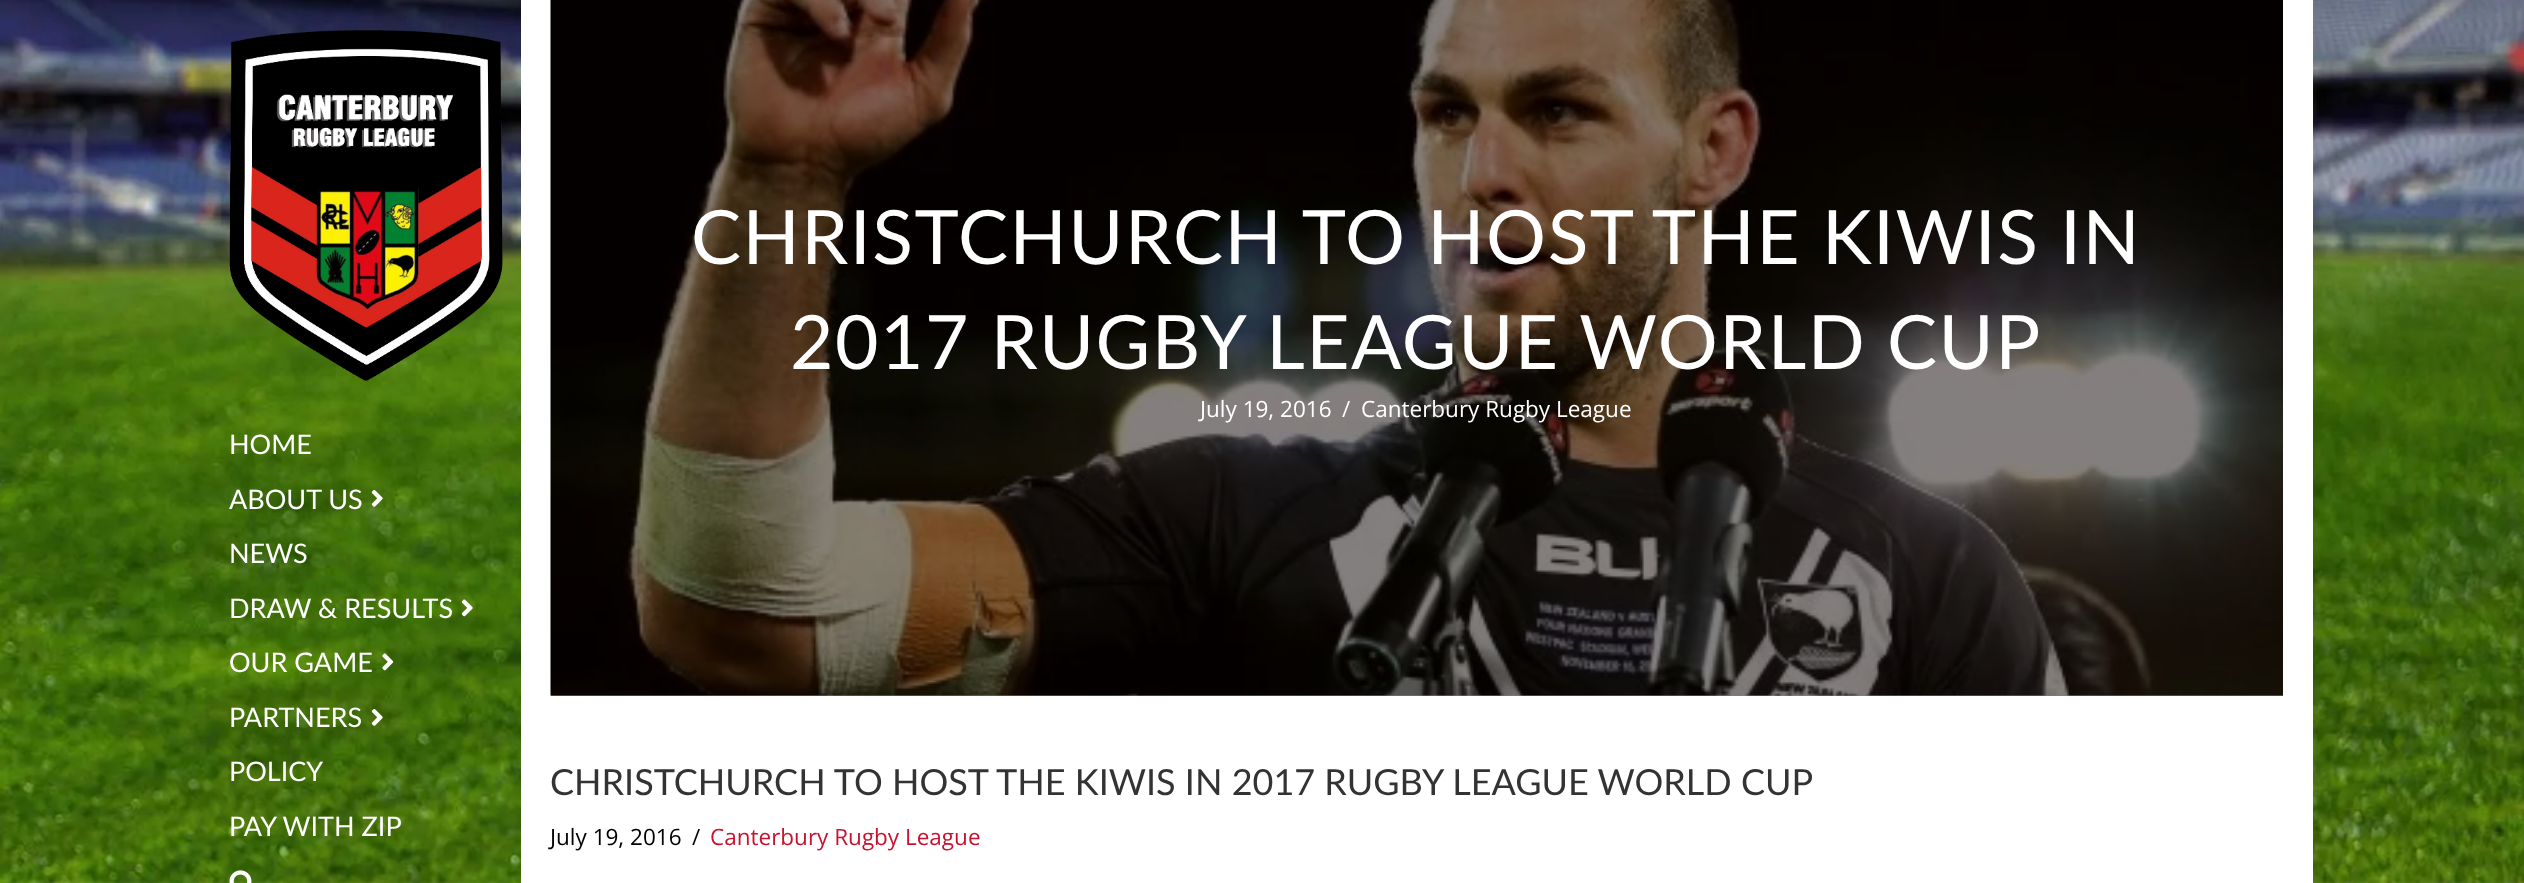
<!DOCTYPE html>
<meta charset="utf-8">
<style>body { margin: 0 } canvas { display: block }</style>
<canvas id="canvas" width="2524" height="883"></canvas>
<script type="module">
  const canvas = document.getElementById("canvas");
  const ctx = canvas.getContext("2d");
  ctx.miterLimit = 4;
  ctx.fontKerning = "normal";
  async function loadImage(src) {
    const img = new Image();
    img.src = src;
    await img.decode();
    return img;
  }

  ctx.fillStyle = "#ffffff";
  ctx.fillRect(0, 0, 2524, 883);
  ctx.drawImage(await loadImage("img1.png"), 0, 0, 2524, 883);
  ctx.drawImage(await loadImage("img2.png"), 229, 30, 274, 351);
  ctx.font = "27px Lato";
  ctx.fillText("HOME", 229, 454);
  ctx.fillText("ABOUT US", 229, 509);
  ctx.drawImage(await loadImage("img3.png"), 371, 490, 12, 17);
  ctx.fillText("NEWS", 229, 563);
  ctx.fillText("DRAW & RESULTS", 229, 618);
  ctx.drawImage(await loadImage("img4.png"), 461, 599, 12, 18);
  ctx.fillText("OUR GAME", 229, 672);
  ctx.drawImage(await loadImage("img5.png"), 382, 653, 12, 18);
  ctx.fillText("PARTNERS", 229, 727);
  ctx.drawImage(await loadImage("img6.png"), 371, 709, 12, 17);
  ctx.fillText("POLICY", 229, 781);
  ctx.fillText("PAY WITH ZIP", 229, 836);
  ctx.drawImage(await loadImage("img7.png"), 229, 870, 23, 13);
  ctx.fillRect(521, 0, 1792, 883);
  ctx.drawImage(await loadImage("img8.png"), 550, 0, 1733, 696);
  ctx.fillStyle = "rgba(10, 0, 0, 0.5)";
  ctx.fillRect(551, 0, 1732, 696);
  ctx.letterSpacing = "1.5px";
  ctx.font = "75px Lato";
  ctx.fillStyle = "#ffffff";
  ctx.fillText("CHRISTCHURCH TO HOST THE KIWIS IN", 691, 264);
  ctx.fillText("2017 RUGBY LEAGUE WORLD CUP", 790, 369);
  ctx.letterSpacing = "0px";
  ctx.font = "22.5px Open Sans";
  ctx.fillText("July 19, 2016", 1200, 417);
  ctx.fillText("/", 1342, 417);
  ctx.fillText("Canterbury Rugby League", 1361, 417);
  ctx.font = "36px Lato";
  ctx.fillStyle = "#333333";
  ctx.fillText("CHRISTCHURCH TO HOST THE KIWIS IN 2017 RUGBY LEAGUE WORLD CUP", 550, 795);
  ctx.font = "22.5px Open Sans";
  ctx.fillStyle = "#000000";
  ctx.fillText("July 19, 2016", 550, 845);
  ctx.fillText("/", 692, 845);
  ctx.fillStyle = "#ca112f";
  ctx.fillText("Canterbury Rugby League", 710, 845);
</script>
